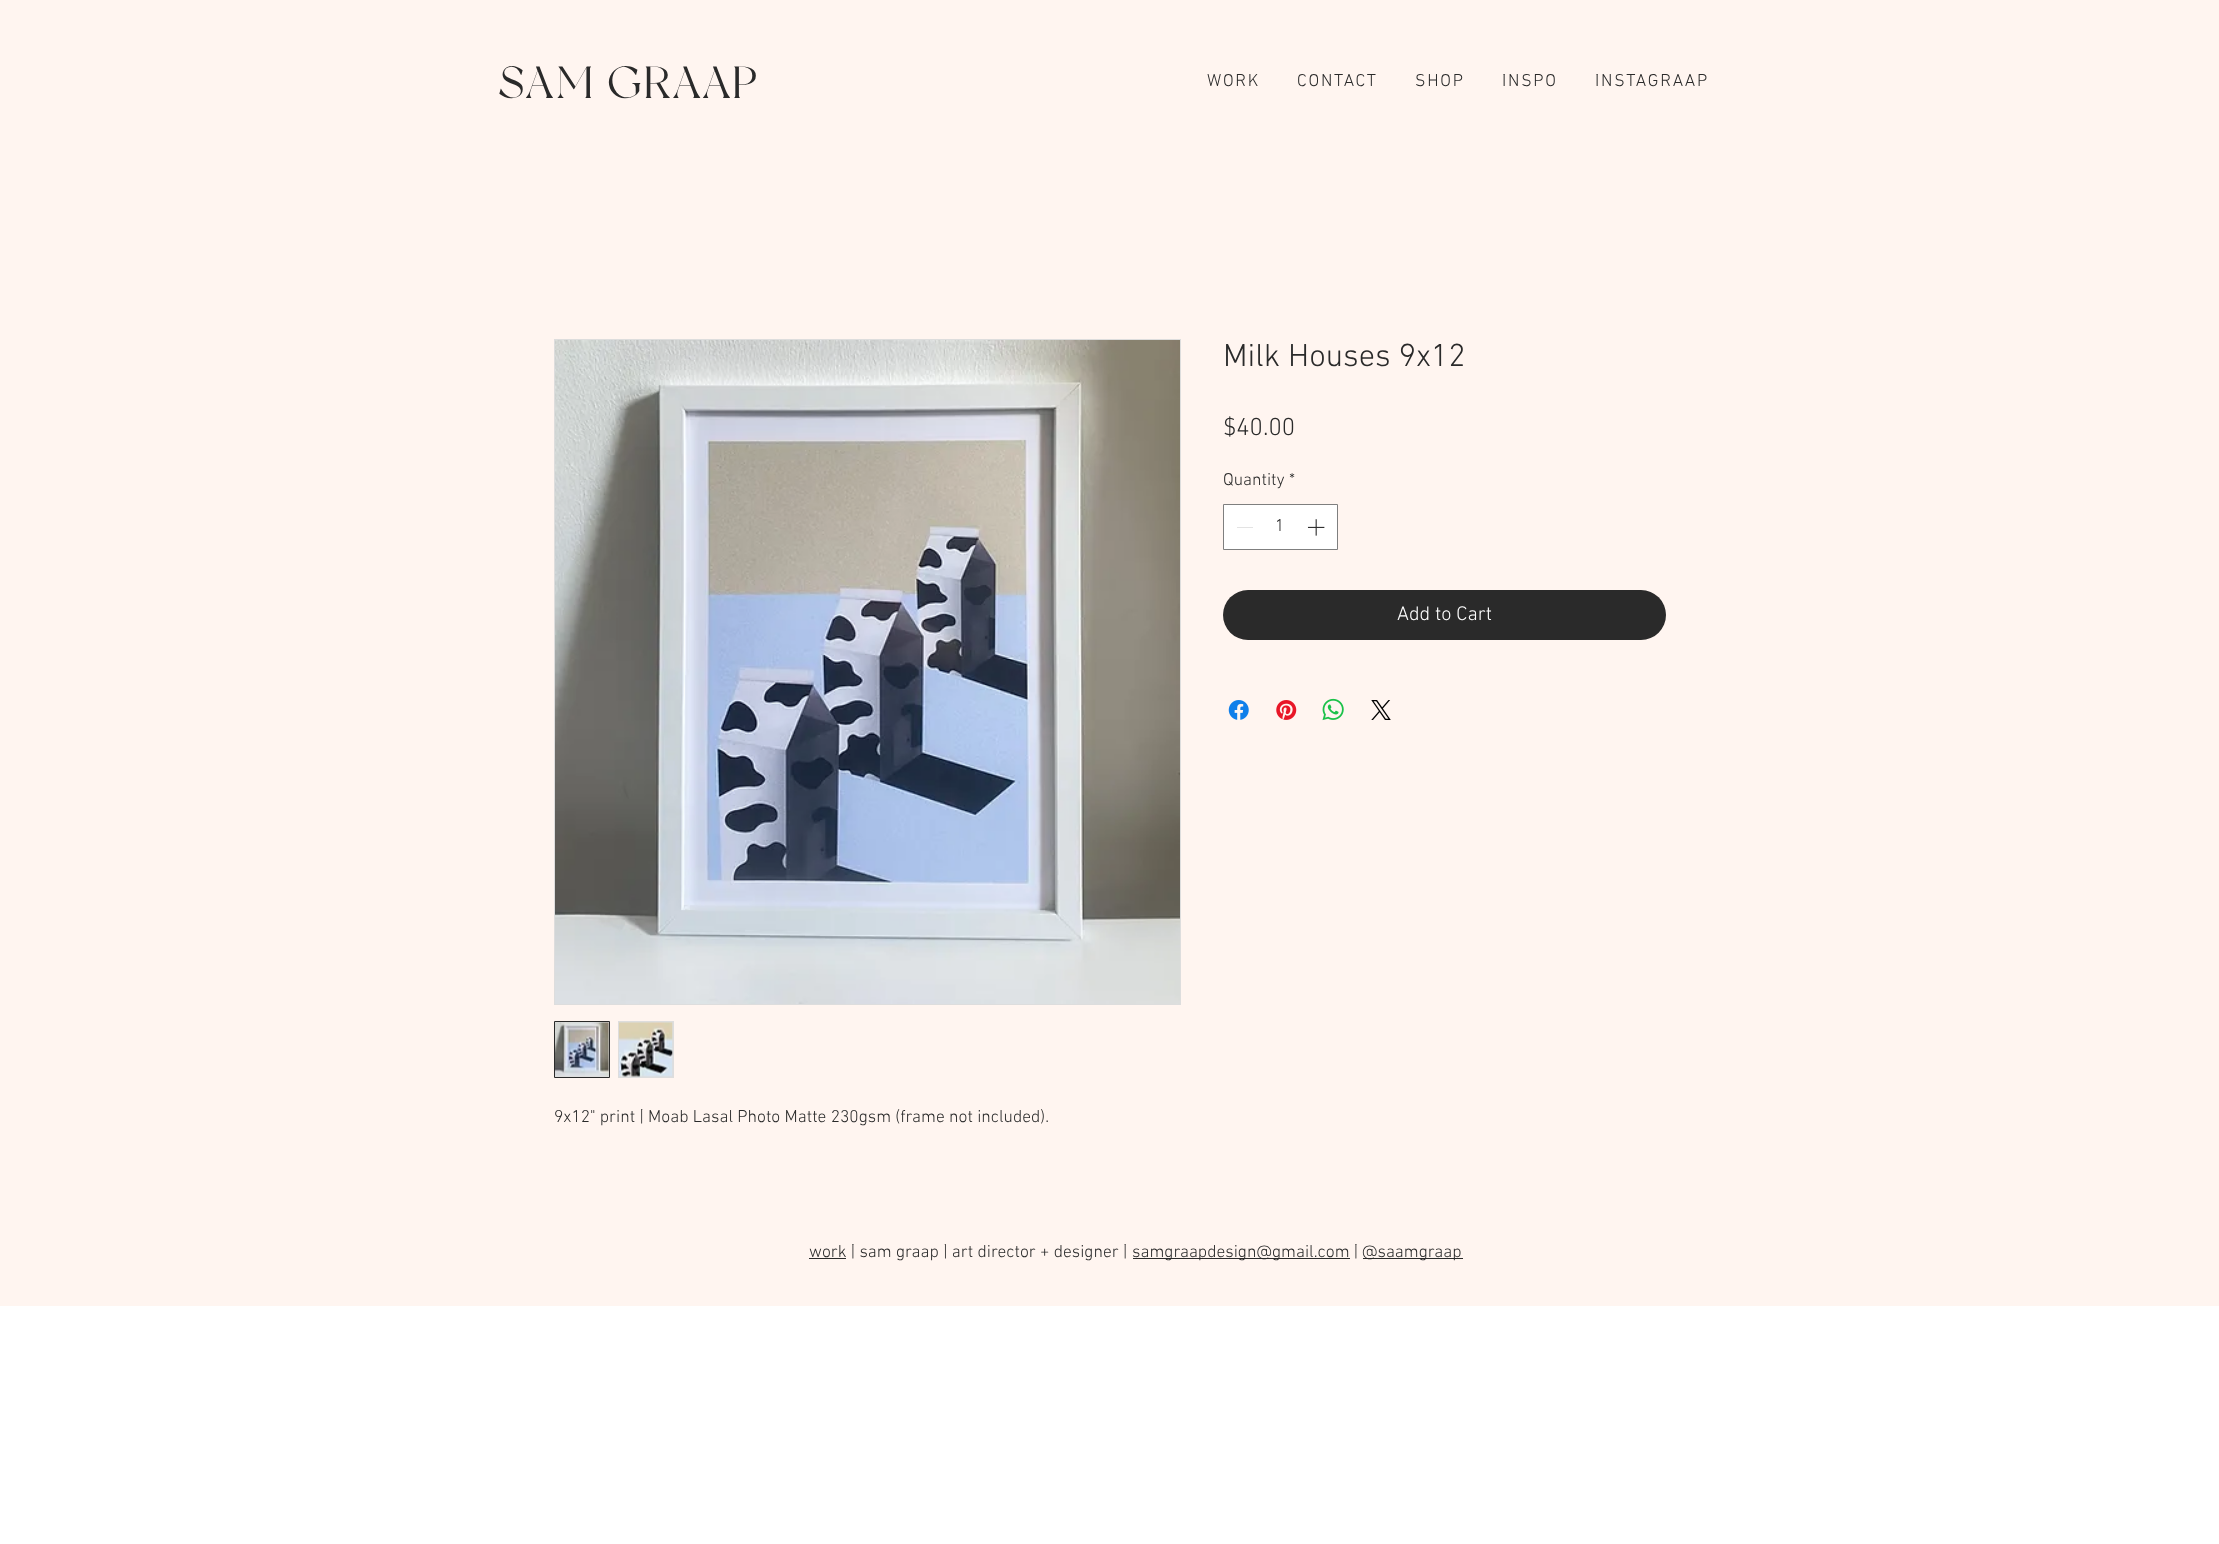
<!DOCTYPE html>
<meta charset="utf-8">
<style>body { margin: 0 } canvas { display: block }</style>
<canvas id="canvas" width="2219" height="1544"></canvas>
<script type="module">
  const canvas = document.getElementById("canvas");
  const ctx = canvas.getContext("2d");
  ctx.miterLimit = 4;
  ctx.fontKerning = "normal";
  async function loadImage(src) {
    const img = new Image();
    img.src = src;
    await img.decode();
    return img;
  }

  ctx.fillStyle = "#ffffff";
  ctx.fillRect(0, 0, 2219, 1544);
  ctx.fillStyle = "#fff5f0";
  ctx.fillRect(0, 0, 2219, 1306);
  ctx.letterSpacing = "2.25px";
  ctx.font = "45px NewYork";
  ctx.fillStyle = "#2a2a2a";
  ctx.fillText("SAM GRAAP", 498, 98);
  ctx.letterSpacing = "1.75px";
  ctx.font = "300 17.5px 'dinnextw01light'";
  ctx.fillText("WORK", 1207, 86);
  ctx.fillText("CONTACT", 1297, 86);
  ctx.fillText("SHOP", 1415, 86);
  ctx.fillText("INSPO", 1502, 86);
  ctx.fillText("INSTAGRAAP", 1595, 86);
  ctx.letterSpacing = "0px";
  ctx.font = "300 32.5px 'dinnextw01light'";
  ctx.fillText("Milk Houses 9x12", 1223, 366);
  ctx.font = "300 25px 'dinnextw01light'";
  ctx.fillText("$40.00", 1223, 435);
  ctx.font = "300 17.5px 'dinnextw01light'";
  ctx.fillText("Quantity", 1223, 485);
  ctx.fillText("*", 1289, 485);
  ctx.fillStyle = "#ffffff";
  ctx.beginPath();
  ctx.rect(1223.5, 504.5, 114, 45);
  ctx.fill();
  ctx.strokeStyle = "#7f7f7f";
  ctx.stroke();
  ctx.fillStyle = "#e3e3e3";
  ctx.fillRect(1237, 527, 16, 1);
  ctx.fillStyle = "#2a2a2a";
  ctx.fillText("1", 1275, 531);
  ctx.drawImage(await loadImage("img1.png"), 1307, 519, 18, 17);
  ctx.beginPath();
  ctx.roundRect(1223, 590, 443, 50, 25);
  ctx.fill();
  ctx.font = "300 20px 'dinnextw01light'";
  ctx.fillStyle = "#ffffff";
  ctx.fillText("Add to Cart", 1397, 620);
  ctx.drawImage(await loadImage("img2.png"), 1228, 700, 21, 20);
  ctx.drawImage(await loadImage("img3.png"), 1276, 700, 21, 20);
  ctx.drawImage(await loadImage("img4.png"), 1322, 698, 22, 23);
  ctx.drawImage(await loadImage("img5.png"), 1371, 700, 20, 20);
  ctx.strokeStyle = "#dddddd";
  ctx.strokeRect(554.5, 339.5, 626, 665);
  ctx.drawImage(await loadImage("img6.png"), 555, 340, 625, 664);
  ctx.fillStyle = "#dddddd";
  ctx.beginPath();
  ctx.rect(554.5, 1021.5, 55, 56);
  ctx.fill();
  ctx.strokeStyle = "#2a2a2a";
  ctx.stroke();
  ctx.drawImage(await loadImage("img7.png"), 555, 1022, 54, 54);
  ctx.fillRect(618, 1021, 56, 57);
  ctx.drawImage(await loadImage("img8.png"), 619, 1022, 54, 55);
  ctx.font = "300 17.5px 'dinnextw01light'";
  ctx.fillStyle = "#2a2a2a";
  ctx.fillText("9x12\" print | Moab Lasal Photo Matte 230gsm (frame not included).", 554, 1122);
  ctx.fillRect(809, 1258, 37, 1);
  ctx.fillText("work | sam graap | art director + designer |", 809, 1257);
  ctx.fillRect(1133, 1258, 217, 1);
  ctx.fillText("samgraapdesign@gmail.com |", 1132, 1257);
  ctx.fillRect(1363, 1258, 100, 1);
  ctx.fillText("@saamgraap", 1362, 1257);
</script>
